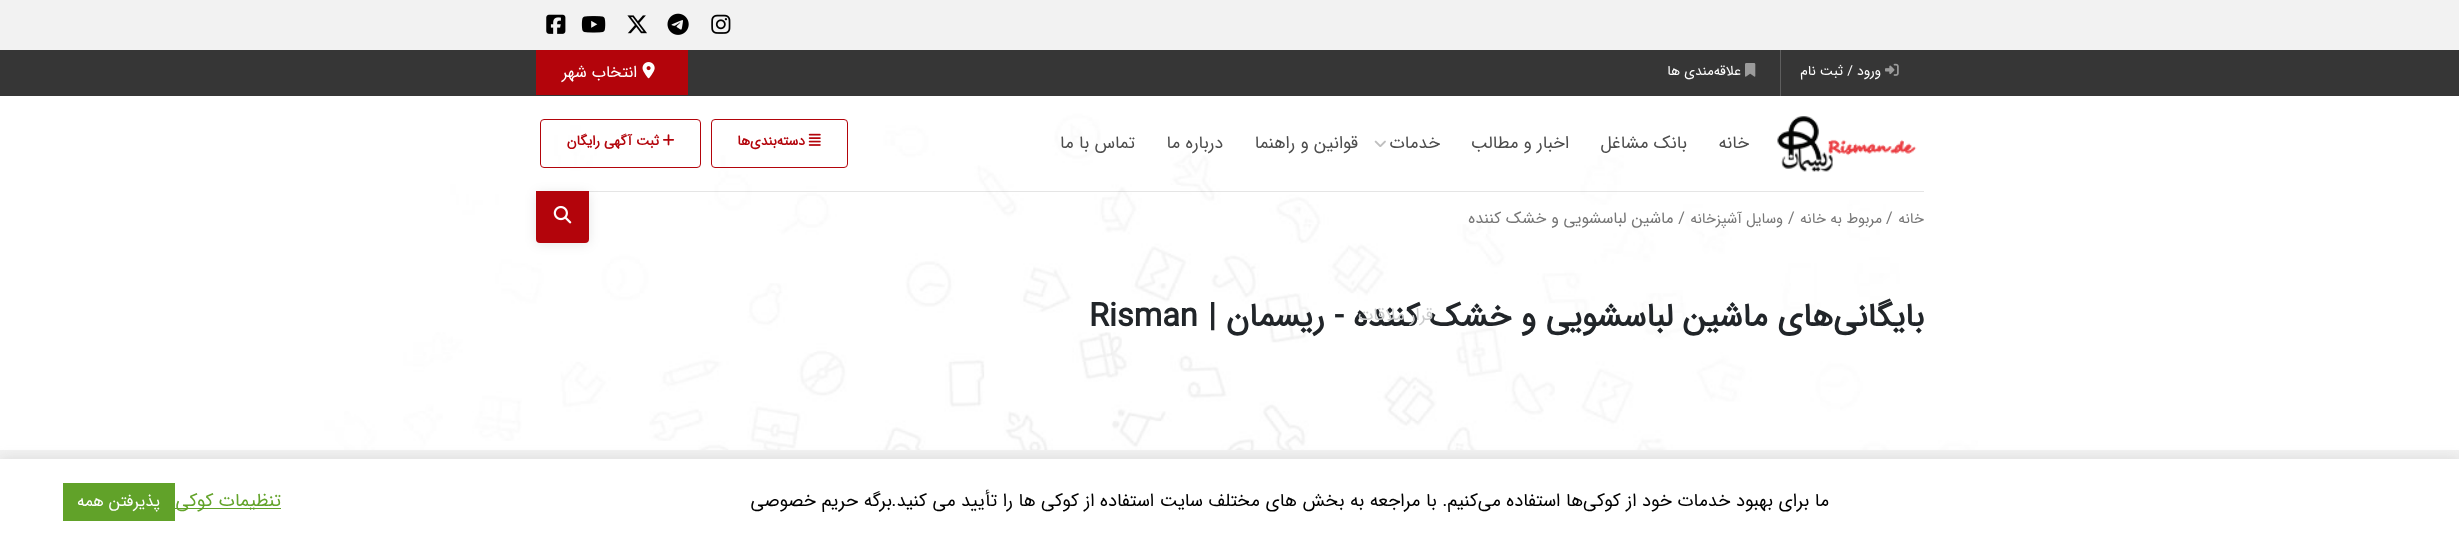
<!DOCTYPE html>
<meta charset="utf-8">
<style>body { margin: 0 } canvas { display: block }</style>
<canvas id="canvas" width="2459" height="545"></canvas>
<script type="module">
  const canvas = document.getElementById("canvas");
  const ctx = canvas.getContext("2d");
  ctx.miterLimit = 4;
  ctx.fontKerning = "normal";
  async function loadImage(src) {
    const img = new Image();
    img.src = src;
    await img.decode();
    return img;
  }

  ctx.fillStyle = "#f2f2f2";
  ctx.fillRect(0, 0, 2459, 545);
  ctx.drawImage(await loadImage("img1.png"), 711, 14, 20, 20);
  ctx.drawImage(await loadImage("img2.png"), 667, 13, 22, 22);
  ctx.drawImage(await loadImage("img3.png"), 627, 15, 20, 19);
  ctx.drawImage(await loadImage("img4.png"), 581, 16, 25, 17);
  ctx.drawImage(await loadImage("img5.png"), 546, 14, 20, 20);
  ctx.fillStyle = "#363636";
  ctx.fillRect(0, 50, 2459, 46);
  ctx.fillStyle = "#5e5e5e";
  ctx.fillRect(1780, 50, 1, 46);
  ctx.drawImage(await loadImage("img6.png"), 1885, 63, 14, 13);
  ctx.direction = "rtl";
  ctx.font = "13.75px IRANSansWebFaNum";
  ctx.fillStyle = "#ffffff";
  ctx.fillText("ورود / ثبت نام", 1881, 75);
  ctx.drawImage(await loadImage("img7.png"), 1745, 63, 11, 14);
  ctx.fillText("علاقه‌مندی ها", 1741, 75);
  ctx.fillStyle = "#b3040b";
  ctx.fillRect(536, 50, 152, 45);
  ctx.drawImage(await loadImage("img8.png"), 642, 62, 13, 17);
  ctx.font = "16.25px IRANSansWebFaNum";
  ctx.fillStyle = "#ffffff";
  ctx.fillText("انتخاب شهر", 637, 77);
  ctx.drawImage(await loadImage("img9.png"), 0, 96, 2459, 354);
  ctx.fillStyle = "rgba(0, 0, 0, 0.1)";
  ctx.fillRect(589, 191, 1335, 1);
  ctx.drawImage(await loadImage("img10.png"), 1777, 116, 140, 56);
  ctx.font = "17.5px IRANSansWebFaNum";
  ctx.fillStyle = "#4d4d4d";
  ctx.fillText("خانه", 1749, 148);
  ctx.fillText("بانک مشاغل", 1687, 148);
  ctx.fillText("اخبار و مطالب", 1569, 148);
  ctx.fillText("خدمات", 1440, 148);
  ctx.drawImage(await loadImage("img11.png"), 1374, 140, 12, 7);
  ctx.font = "bold 32.5px IRANSansWebFaNum";
  ctx.fillStyle = "#212529";
  ctx.fillText("بایگانی‌های ماشین لباسشویی و خشک کننده - ریسمان |", 1924, 326);
  ctx.font = "17.5px IRANSansWebFaNum";
  ctx.fillStyle = "#cccdce";
  ctx.fillText("قرار ملاقات", 1433, 320);
  ctx.fillStyle = "#4d4d4d";
  ctx.fillText("قوانین و راهنما", 1358, 148);
  ctx.fillText("درباره ما", 1223, 148);
  ctx.fillText("تماس با ما", 1135, 148);
  ctx.beginPath();
  ctx.roundRect(711.5, 119.5, 136, 48, 3.5);
  ctx.strokeStyle = "#b3040b";
  ctx.stroke();
  ctx.drawImage(await loadImage("img12.png"), 808, 133, 13, 13);
  ctx.font = "bold 13.75px IRANSansWebFaNum";
  ctx.fillStyle = "#b3040b";
  ctx.fillText("دسته‌بندی‌ها", 805, 145);
  ctx.beginPath();
  ctx.roundRect(540.5, 119.5, 160, 48, 3.5);
  ctx.stroke();
  ctx.drawImage(await loadImage("img13.png"), 663, 134, 12, 12);
  ctx.fillText("ثبت آگهی رایگان", 659, 145);
  ctx.fillStyle = "rgba(0, 0, 0, 0.1)";
  ctx.filter = "blur(6px)";
  ctx.beginPath();
  ctx.roundRect(536, 193, 53, 51, 4);
  ctx.fill();
  ctx.filter = "none";
  ctx.fillStyle = "#b3040b";
  ctx.beginPath();
  ctx.roundRect(536, 191, 53, 52, [0, 0, 4, 4]);
  ctx.fill();
  ctx.drawImage(await loadImage("img14.png"), 553, 205, 19, 19);
  ctx.font = "14.75px IRANSansWebFaNum";
  ctx.fillStyle = "#767676";
  ctx.fillText("خانه", 1924, 223);
  ctx.direction = "ltr";
  ctx.font = "16.1px IRANSansWebFaNum";
  ctx.fillText("/", 1886, 223);
  ctx.direction = "rtl";
  ctx.font = "14.75px IRANSansWebFaNum";
  ctx.fillText("مربوط به خانه", 1882, 223);
  ctx.direction = "ltr";
  ctx.font = "16.1px IRANSansWebFaNum";
  ctx.fillText("/", 1788, 223);
  ctx.direction = "rtl";
  ctx.font = "14.75px IRANSansWebFaNum";
  ctx.fillText("وسایل آشپزخانه", 1783, 223);
  ctx.font = "16.1px IRANSansWebFaNum";
  ctx.fillText("/ ماشین لباسشویی و خشک کننده", 1685, 223);
  ctx.direction = "ltr";
  ctx.font = "bold 32.5px IRANSansWebFaNum";
  ctx.fillStyle = "#212529";
  ctx.fillText("Risman", 1089, 326);
  ctx.fillStyle = "rgba(172, 171, 171, 0.3)";
  ctx.filter = "blur(6px)";
  ctx.beginPath();
  ctx.rect(0, 458, 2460, 86);
  ctx.fill();
  ctx.filter = "none";
  ctx.fillStyle = "#ffffff";
  ctx.fillRect(0, 459, 2459, 86);
  ctx.direction = "rtl";
  ctx.font = "18.33px IRANSansWebFaNum";
  ctx.fillStyle = "#000000";
  ctx.fillText("ما برای بهبود خدمات خود از کوکی‌ها استفاده می‌کنیم. با مراجعه به بخش های مختلف سایت استفاده از کوکی ها را تأیید می کنید.", 1829, 506);
  ctx.fillText("برگه حریم خصوصی", 892, 506);
  ctx.fillStyle = "#62a329";
  ctx.fillRect(175, 508, 106, 1);
  ctx.fillText("تنظیمات کوکی", 281, 506);
  ctx.fillStyle = "#61a229";
  ctx.fillRect(63, 483, 112, 38);
  ctx.font = "16.25px IRANSansWebFaNum";
  ctx.fillStyle = "#ffffff";
  ctx.fillText("پذیرفتن همه", 160, 506);
</script>
